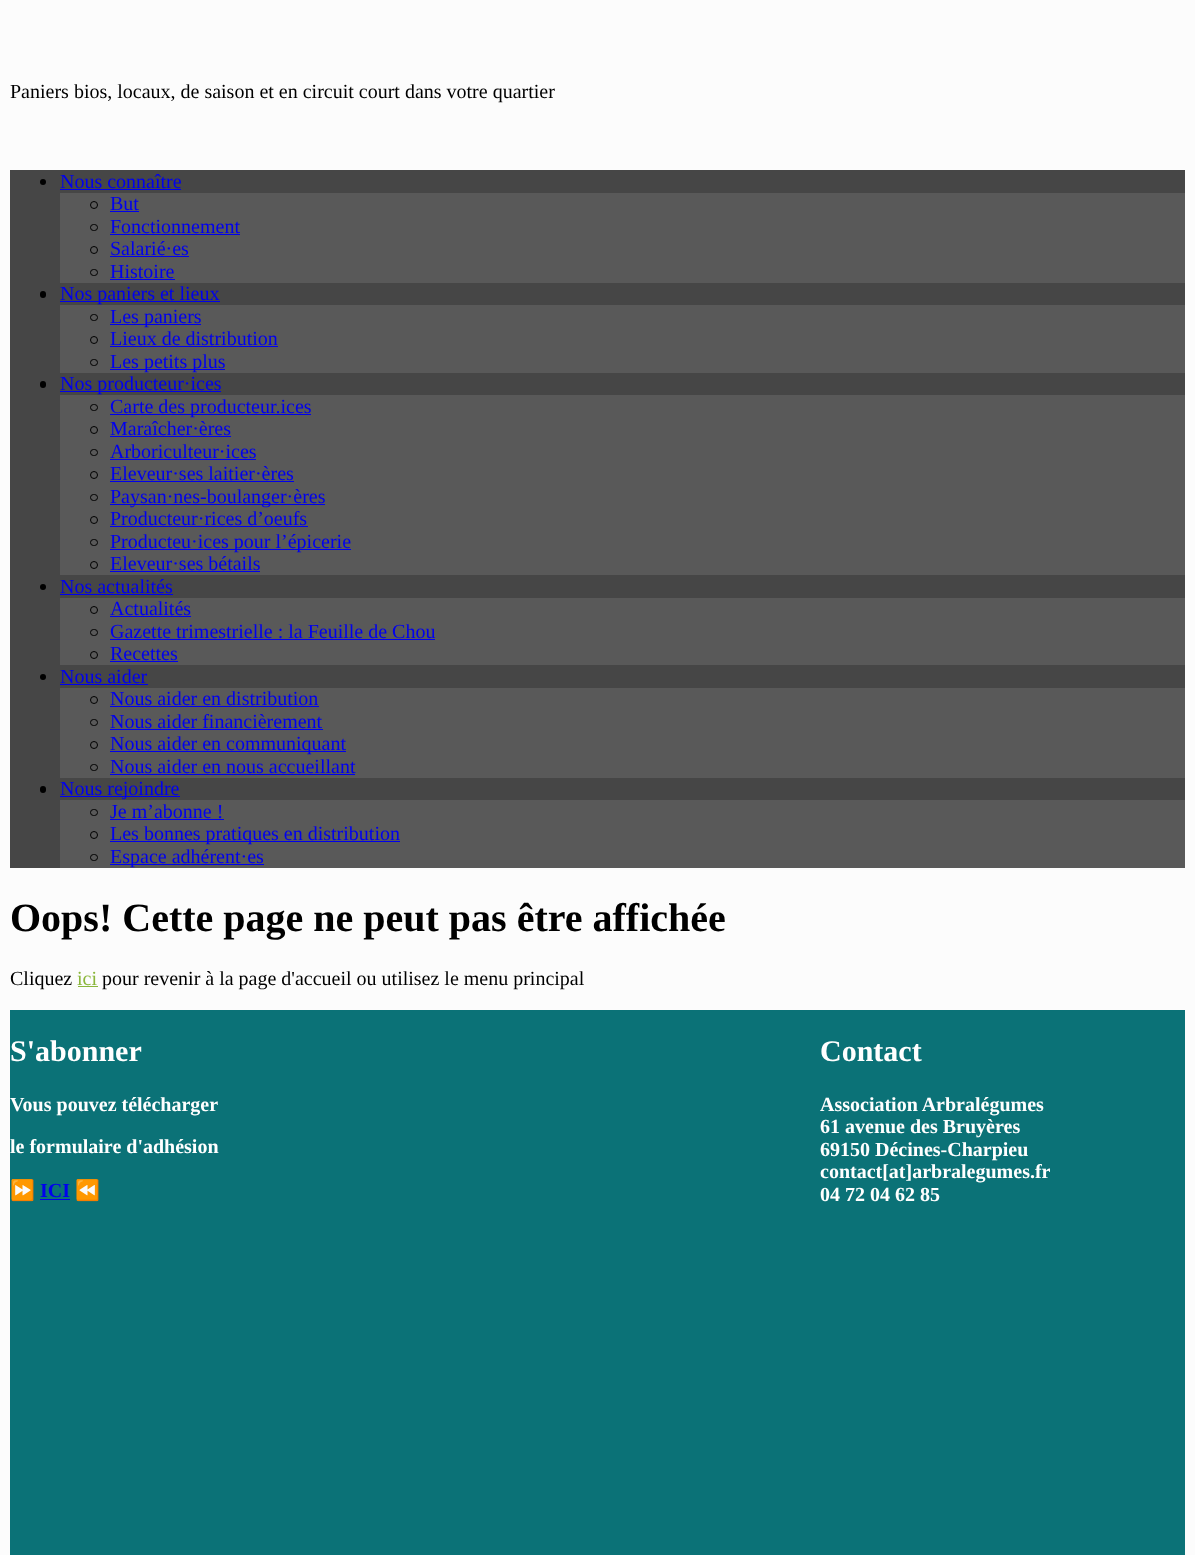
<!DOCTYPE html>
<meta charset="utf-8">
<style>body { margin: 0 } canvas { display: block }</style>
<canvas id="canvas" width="1195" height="1555"></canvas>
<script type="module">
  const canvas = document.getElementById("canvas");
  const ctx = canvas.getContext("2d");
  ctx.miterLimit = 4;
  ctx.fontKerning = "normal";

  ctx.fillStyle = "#fcfcfc";
  ctx.fillRect(0, 0, 1195, 1555);
  ctx.font = "20px Liberation Serif";
  ctx.fillStyle = "#000000";
  ctx.fillText("Paniers bios, locaux, de saison et en circuit court dans votre quartier", 10, 98);
  ctx.fillStyle = "#464646";
  ctx.fillRect(10, 170, 1175, 698);
  ctx.fillStyle = "#000000";
  ctx.beginPath();
  ctx.arc(43, 182, 3, 0, Math.PI * 2);
  ctx.fill();
  ctx.fillStyle = "#0000ee";
  ctx.fillText("Nous connaître", 60, 188);
  ctx.fillRect(60, 189, 121, 1);
  ctx.fillStyle = "#595959";
  ctx.fillRect(60, 193, 1125, 90);
  ctx.beginPath();
  ctx.arc(94, 205, 3.5, 0, Math.PI * 2);
  ctx.strokeStyle = "#000000";
  ctx.stroke();
  ctx.fillStyle = "#0000ee";
  ctx.fillText("But", 110, 210);
  ctx.fillRect(110, 211, 29, 1);
  ctx.beginPath();
  ctx.roundRect(90.5, 224.5, 7, 6, 3);
  ctx.stroke();
  ctx.fillText("Fonctionnement", 110, 233);
  ctx.fillRect(110, 234, 130, 1);
  ctx.beginPath();
  ctx.arc(94, 250, 3.5, 0, Math.PI * 2);
  ctx.stroke();
  ctx.fillText("Salarié·es", 110, 255);
  ctx.fillRect(110, 256, 79, 1);
  ctx.beginPath();
  ctx.roundRect(90.5, 269.5, 7, 6, 3);
  ctx.stroke();
  ctx.fillText("Histoire", 110, 278);
  ctx.fillRect(110, 279, 65, 1);
  ctx.fillStyle = "#000000";
  ctx.beginPath();
  ctx.roundRect(40, 291, 6, 7, 3);
  ctx.fill();
  ctx.fillStyle = "#0000ee";
  ctx.fillRect(60, 301, 160, 1);
  ctx.fillText("Nos paniers et lieux", 60, 300);
  ctx.fillStyle = "#595959";
  ctx.fillRect(60, 305, 1125, 68);
  ctx.beginPath();
  ctx.roundRect(90.5, 314.5, 7, 6, 3);
  ctx.stroke();
  ctx.fillStyle = "#0000ee";
  ctx.fillRect(110, 324, 91, 1);
  ctx.fillText("Les paniers", 110, 323);
  ctx.beginPath();
  ctx.arc(94, 340, 3.5, 0, Math.PI * 2);
  ctx.stroke();
  ctx.fillText("Lieux de distribution", 110, 345);
  ctx.fillRect(110, 346, 168, 1);
  ctx.beginPath();
  ctx.roundRect(90.5, 359.5, 7, 6, 3);
  ctx.stroke();
  ctx.fillRect(110, 369, 115, 1);
  ctx.fillText("Les petits plus", 110, 368);
  ctx.fillStyle = "#000000";
  ctx.beginPath();
  ctx.roundRect(40, 381, 6, 7, 3);
  ctx.fill();
  ctx.fillStyle = "#0000ee";
  ctx.fillRect(60, 391, 161, 1);
  ctx.fillText("Nos producteur·ices", 60, 390);
  ctx.fillStyle = "#595959";
  ctx.fillRect(60, 395, 1125, 180);
  ctx.beginPath();
  ctx.roundRect(90.5, 404.5, 7, 6, 3);
  ctx.stroke();
  ctx.fillStyle = "#0000ee";
  ctx.fillRect(110, 414, 201, 1);
  ctx.fillText("Carte des producteur.ices", 110, 413);
  ctx.beginPath();
  ctx.arc(94, 430, 3.5, 0, Math.PI * 2);
  ctx.stroke();
  ctx.fillText("Maraîcher·ères", 110, 435);
  ctx.fillRect(110, 436, 121, 1);
  ctx.beginPath();
  ctx.roundRect(90.5, 449.5, 7, 6, 3);
  ctx.stroke();
  ctx.fillText("Arboriculteur·ices", 110, 458);
  ctx.fillRect(110, 459, 146, 1);
  ctx.beginPath();
  ctx.arc(94, 475, 3.5, 0, Math.PI * 2);
  ctx.stroke();
  ctx.fillText("Eleveur·ses laitier·ères", 110, 480);
  ctx.fillRect(110, 481, 184, 1);
  ctx.beginPath();
  ctx.roundRect(90.5, 494.5, 7, 6, 3);
  ctx.stroke();
  ctx.fillRect(110, 504, 215, 1);
  ctx.fillText("Paysan·nes-boulanger·ères", 110, 503);
  ctx.beginPath();
  ctx.arc(94, 520, 3.5, 0, Math.PI * 2);
  ctx.stroke();
  ctx.fillText("Producteur·rices d’oeufs", 110, 525);
  ctx.fillRect(110, 526, 198, 1);
  ctx.beginPath();
  ctx.roundRect(90.5, 539.5, 7, 6, 3);
  ctx.stroke();
  ctx.fillRect(110, 549, 241, 1);
  ctx.fillText("Producteu·ices pour l’épicerie", 110, 548);
  ctx.beginPath();
  ctx.arc(94, 565, 3.5, 0, Math.PI * 2);
  ctx.stroke();
  ctx.fillText("Eleveur·ses bétails", 110, 570);
  ctx.fillRect(110, 571, 150, 1);
  ctx.fillStyle = "#000000";
  ctx.beginPath();
  ctx.arc(43, 587, 3, 0, Math.PI * 2);
  ctx.fill();
  ctx.fillStyle = "#0000ee";
  ctx.fillText("Nos actualités", 60, 593);
  ctx.fillRect(60, 594, 113, 1);
  ctx.fillStyle = "#595959";
  ctx.fillRect(60, 598, 1125, 67);
  ctx.beginPath();
  ctx.arc(94, 610, 3.5, 0, Math.PI * 2);
  ctx.stroke();
  ctx.fillStyle = "#0000ee";
  ctx.fillText("Actualités", 110, 615);
  ctx.fillRect(110, 616, 81, 1);
  ctx.beginPath();
  ctx.roundRect(90.5, 629.5, 7, 6, 3);
  ctx.stroke();
  ctx.fillText("Gazette trimestrielle : la Feuille de Chou", 110, 638);
  ctx.fillRect(110, 639, 325, 1);
  ctx.beginPath();
  ctx.arc(94, 655, 3.5, 0, Math.PI * 2);
  ctx.stroke();
  ctx.fillText("Recettes", 110, 660);
  ctx.fillRect(110, 661, 68, 1);
  ctx.fillStyle = "#000000";
  ctx.beginPath();
  ctx.arc(43, 677, 3, 0, Math.PI * 2);
  ctx.fill();
  ctx.fillStyle = "#0000ee";
  ctx.fillText("Nous aider", 60, 683);
  ctx.fillRect(60, 684, 88, 1);
  ctx.fillStyle = "#595959";
  ctx.fillRect(60, 688, 1125, 90);
  ctx.beginPath();
  ctx.arc(94, 700, 3.5, 0, Math.PI * 2);
  ctx.stroke();
  ctx.fillStyle = "#0000ee";
  ctx.fillText("Nous aider en distribution", 110, 705);
  ctx.fillRect(110, 706, 209, 1);
  ctx.beginPath();
  ctx.roundRect(90.5, 719.5, 7, 6, 3);
  ctx.stroke();
  ctx.fillText("Nous aider financièrement", 110, 728);
  ctx.fillRect(110, 729, 213, 1);
  ctx.beginPath();
  ctx.arc(94, 745, 3.5, 0, Math.PI * 2);
  ctx.stroke();
  ctx.fillRect(110, 751, 236, 1);
  ctx.fillText("Nous aider en communiquant", 110, 750);
  ctx.beginPath();
  ctx.roundRect(90.5, 764.5, 7, 6, 3);
  ctx.stroke();
  ctx.fillText("Nous aider en nous accueillant", 110, 773);
  ctx.fillRect(110, 774, 245, 1);
  ctx.fillStyle = "#000000";
  ctx.beginPath();
  ctx.roundRect(40, 786, 6, 7, 3);
  ctx.fill();
  ctx.fillStyle = "#0000ee";
  ctx.fillRect(60, 796, 120, 1);
  ctx.fillText("Nous rejoindre", 60, 795);
  ctx.fillStyle = "#595959";
  ctx.fillRect(60, 800, 1125, 68);
  ctx.beginPath();
  ctx.roundRect(90.5, 809.5, 7, 6, 3);
  ctx.stroke();
  ctx.fillStyle = "#0000ee";
  ctx.fillText("Je m’abonne !", 110, 818);
  ctx.fillRect(110, 819, 114, 1);
  ctx.beginPath();
  ctx.arc(94, 835, 3.5, 0, Math.PI * 2);
  ctx.stroke();
  ctx.fillRect(110, 841, 290, 1);
  ctx.fillText("Les bonnes pratiques en distribution", 110, 840);
  ctx.beginPath();
  ctx.roundRect(90.5, 854.5, 7, 6, 3);
  ctx.stroke();
  ctx.fillRect(110, 864, 154, 1);
  ctx.fillText("Espace adhérent·es", 110, 863);
  ctx.font = "bold 40px Liberation Serif";
  ctx.fillStyle = "#000000";
  ctx.fillText("Oops! Cette page ne peut pas être affichée", 10, 931);
  ctx.font = "20px Liberation Serif";
  ctx.fillText("Cliquez", 10, 985);
  ctx.fillStyle = "#8ab63b";
  ctx.fillText("ici", 77, 985);
  ctx.fillRect(78, 986, 20, 1);
  ctx.fillStyle = "#000000";
  ctx.fillText("pour revenir à la page d'accueil ou utilisez le menu principal", 102, 985);
  ctx.fillStyle = "#0b7277";
  ctx.fillRect(10, 1010, 1175, 545);
  ctx.font = "bold 30px Liberation Serif";
  ctx.fillStyle = "#ffffff";
  ctx.fillText("S'abonner", 10, 1061);
  ctx.font = "bold 20px Liberation Serif";
  ctx.fillText("Vous pouvez télécharger", 10, 1111);
  ctx.fillText("le formulaire d'adhésion", 10, 1153);
  ctx.font = "20px Noto Color Emoji";
  ctx.fillStyle = "#000000";
  ctx.fillText("⏩", 10, 1197);
  ctx.font = "bold 20px Liberation Serif";
  ctx.fillStyle = "#0000ee";
  ctx.fillText("ICI", 40, 1197);
  ctx.fillRect(40, 1199, 30, 1);
  ctx.font = "20px Noto Color Emoji";
  ctx.fillStyle = "#000000";
  ctx.fillText("⏪", 75, 1197);
  ctx.font = "bold 30px Liberation Serif";
  ctx.fillStyle = "#ffffff";
  ctx.fillText("Contact", 820, 1061);
  ctx.font = "bold 20px Liberation Serif";
  ctx.fillText("Association Arbralégumes", 820, 1111);
  ctx.fillText("61 avenue des Bruyères", 820, 1133);
  ctx.fillText("69150 Décines-Charpieu", 820, 1156);
  ctx.fillText("contact[at]arbralegumes.fr", 820, 1178);
  ctx.fillText("04 72 04 62 85", 820, 1201);
</script>
